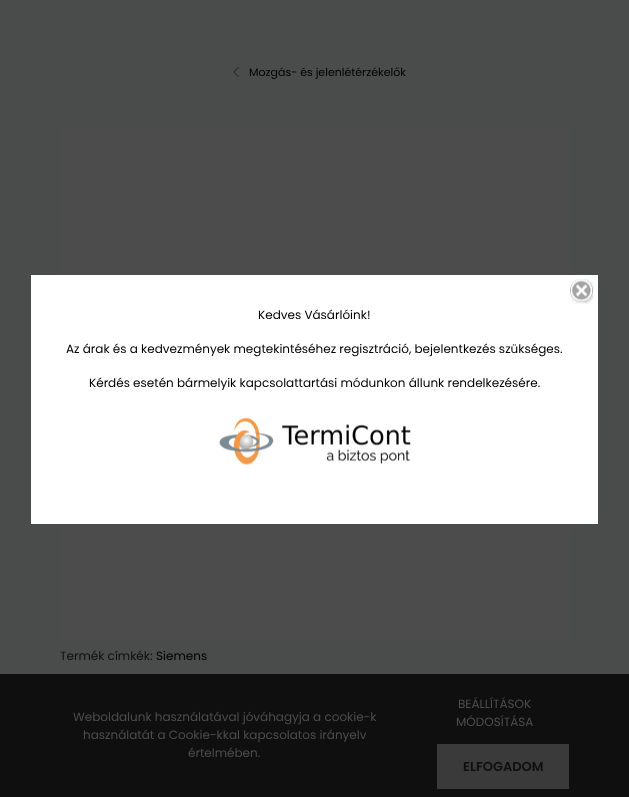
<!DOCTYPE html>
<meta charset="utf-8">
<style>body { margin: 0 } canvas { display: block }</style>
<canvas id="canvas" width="629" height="797"></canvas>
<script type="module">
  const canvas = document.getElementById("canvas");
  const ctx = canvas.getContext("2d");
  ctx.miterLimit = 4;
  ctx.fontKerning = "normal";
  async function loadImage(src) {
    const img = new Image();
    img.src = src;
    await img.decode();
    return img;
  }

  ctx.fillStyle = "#4a4b4b";
  ctx.fillRect(0, 0, 629, 797);
  ctx.drawImage(await loadImage("img1.png"), 233, 67, 6, 10);
  ctx.font = "11px Poppins";
  ctx.fillStyle = "#000000";
  ctx.fillText("Mozgás- és jelenlétérzékelők", 249, 76);
  ctx.drawImage(await loadImage("img2.png"), 60, 129, 510, 510);
  ctx.font = "12px Poppins";
  ctx.fillStyle = "#0f0f0f";
  ctx.fillText("Termék címkék:", 60, 660);
  ctx.fillStyle = "#000000";
  ctx.fillText("Siemens", 156, 660);
  ctx.fillStyle = "#ffffff";
  ctx.fillRect(31, 275, 567, 249);
  ctx.drawImage(await loadImage("img3.png"), 570, 279, 23, 25);
  ctx.fillStyle = "#000000";
  ctx.fillText("Kedves Vásárlóink!", 258, 319);
  ctx.fillText("Az árak és a kedvezmények megtekintéséhez regisztráció, bejelentkezés szükséges.", 66, 353);
  ctx.fillText("Kérdés esetén bármelyik kapcsolattartási módunkon állunk rendelkezésére.", 89, 387);
  ctx.drawImage(await loadImage("img4.png"), 219, 417, 192, 48);
  ctx.fillStyle = "#0f0f0f";
  ctx.fillRect(0, 674, 629, 123);
  ctx.fillStyle = "#4d4d4d";
  ctx.fillText("Weboldalunk használatával jóváhagyja a cookie-k", 73, 721);
  ctx.fillText("használatát a Cookie-kkal kapcsolatos irányelv", 83, 739);
  ctx.fillText("értelmében.", 188, 757);
  ctx.fillText("BEÁLLÍTÁSOK", 458, 708);
  ctx.fillText("MÓDOSÍTÁSA", 456, 726);
  ctx.fillStyle = "#3a3a3a";
  ctx.fillRect(437, 744, 132, 45);
  ctx.font = "600 13px Poppins";
  ctx.fillStyle = "#0f0f0f";
  ctx.fillText("ELFOGADOM", 463, 771);
</script>
